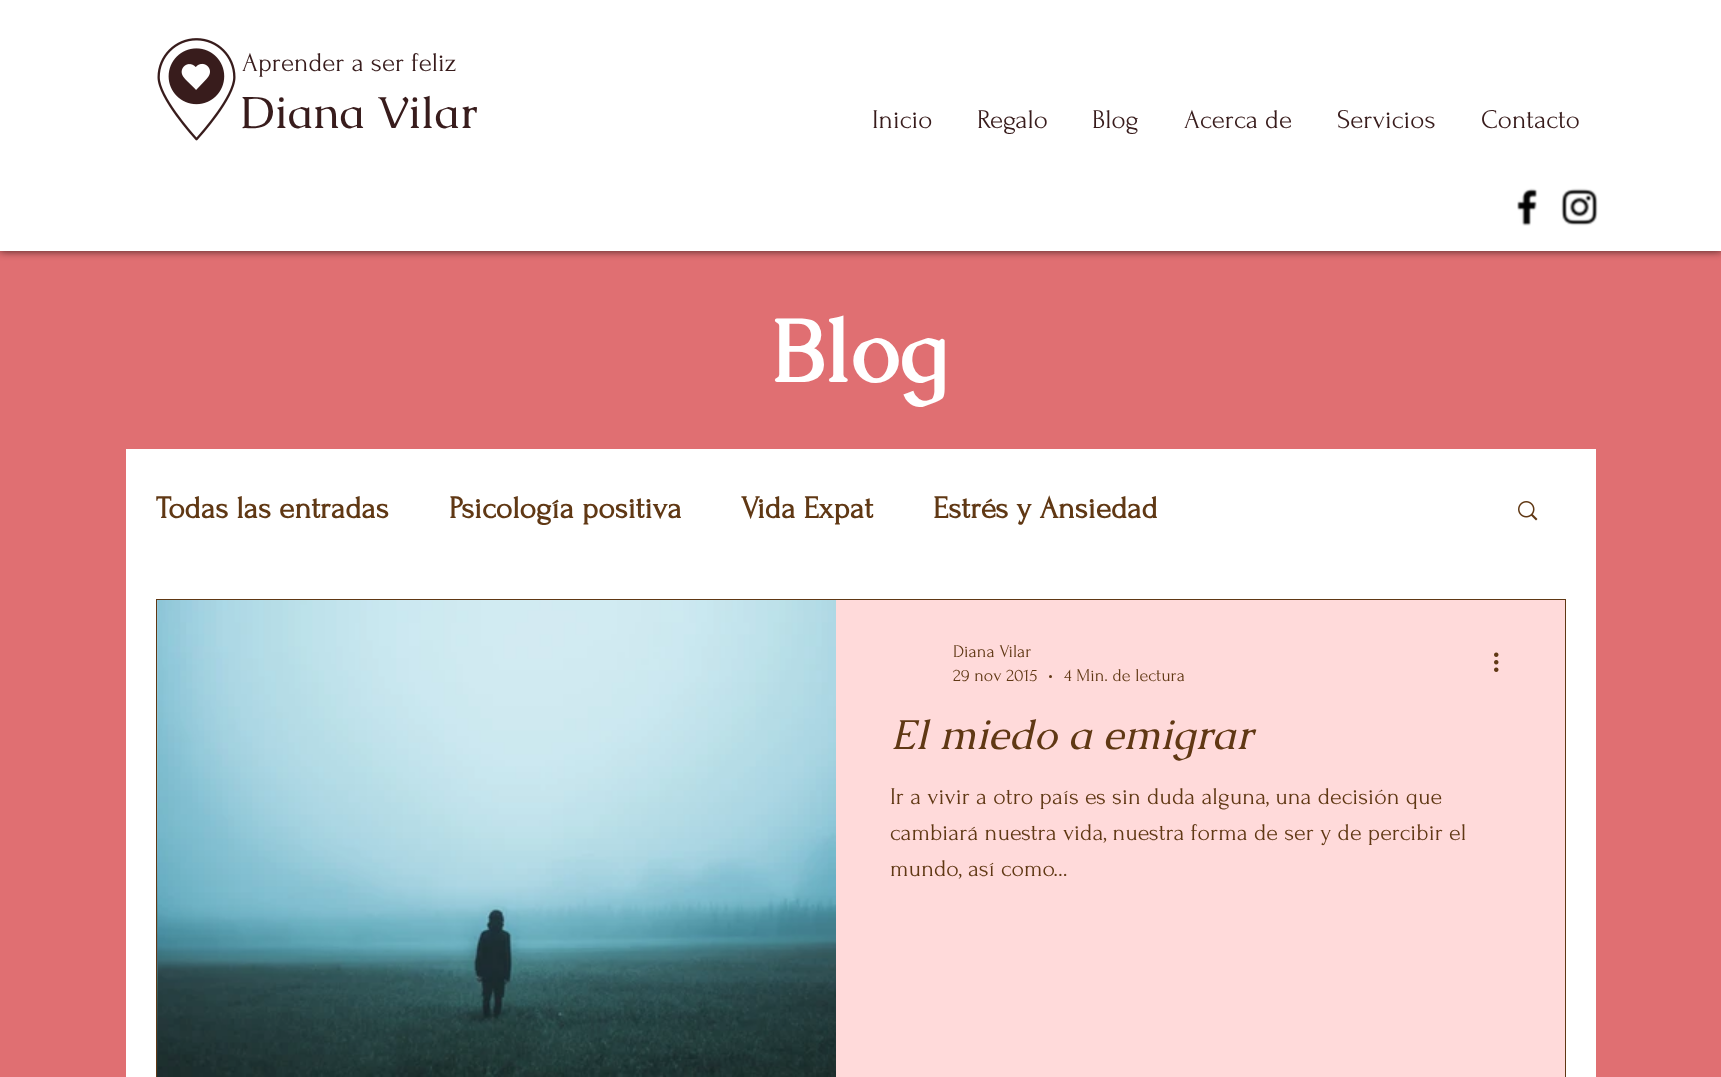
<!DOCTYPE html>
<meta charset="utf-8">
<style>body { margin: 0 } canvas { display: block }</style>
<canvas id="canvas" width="1721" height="1077"></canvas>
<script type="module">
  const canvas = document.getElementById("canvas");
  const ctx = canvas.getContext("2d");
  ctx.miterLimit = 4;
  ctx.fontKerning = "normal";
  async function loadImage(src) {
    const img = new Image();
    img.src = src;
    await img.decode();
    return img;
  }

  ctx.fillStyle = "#e06f72";
  ctx.fillRect(0, 0, 1721, 1077);
  ctx.fillStyle = "rgba(0, 0, 0, 0.7)";
  ctx.filter = "blur(4px)";
  ctx.beginPath();
  ctx.rect(0, 0, 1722, 251);
  ctx.fill();
  ctx.filter = "none";
  ctx.fillStyle = "#ffffff";
  ctx.fillRect(0, 0, 1721, 251);
  ctx.drawImage(await loadImage("img1.png"), 157, 38, 79, 103);
  ctx.font = "27px Forum";
  ctx.fillStyle = "#381c1c";
  ctx.fillText("Aprender a ser feliz", 242, 71);
  ctx.font = "45px Caudex";
  ctx.fillText("Diana Vilar", 240, 128);
  ctx.font = "27px Forum";
  ctx.fillText("Inicio", 872, 128);
  ctx.fillText("Regalo", 977, 128);
  ctx.fillText("Blog", 1092, 128);
  ctx.fillText("Acerca de", 1184, 128);
  ctx.fillText("Servicios", 1337, 128);
  ctx.fillText("Contacto", 1481, 128);
  ctx.drawImage(await loadImage("img2.png"), 1517, 188, 21, 38);
  ctx.drawImage(await loadImage("img3.png"), 1561, 188, 37, 38);
  ctx.font = "bold 90px Caudex";
  ctx.fillStyle = "#ffffff";
  ctx.fillText("Blog", 771, 381);
  ctx.fillRect(126, 449, 1470, 628);
  ctx.font = "bold 31.5px Forum";
  ctx.fillStyle = "#603814";
  ctx.fillText("Todas las entradas", 156, 518);
  ctx.fillText("Psicología positiva", 449, 518);
  ctx.fillText("Vida Expat", 741, 518);
  ctx.fillText("Estrés y Ansiedad", 933, 518);
  ctx.drawImage(await loadImage("img4.png"), 1518, 501, 20, 20);
  ctx.strokeStyle = "#603814";
  ctx.lineWidth = 2;
  ctx.strokeRect(157, 600, 1408, 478);
  ctx.drawImage(await loadImage("img5.png"), 157, 600, 1, 477);
  ctx.drawImage(await loadImage("img6.png"), 158, 600, 678, 477);
  ctx.fillStyle = "#ffdada";
  ctx.fillRect(836, 600, 729, 477);
  ctx.font = "18px Forum";
  ctx.fillStyle = "#603814";
  ctx.fillText("Diana Vilar", 953, 657);
  ctx.fillText("29 nov 2015", 953, 681);
  ctx.beginPath();
  ctx.arc(1050.5, 676.5, 1.5, 0, Math.PI * 2);
  ctx.fill();
  ctx.fillText("4 Min. de lectura", 1064, 681);
  ctx.drawImage(await loadImage("img7.png"), 1494, 652, 5, 20);
  ctx.font = "italic 42px Caudex";
  ctx.fillText("El miedo a emigrar", 890, 749);
  ctx.font = "24px Forum";
  ctx.fillText("Ir a vivir a otro país es sin duda alguna, una decisión que", 890, 804);
  ctx.fillText("cambiará nuestra vida, nuestra forma de ser y de percibir el", 890, 840);
  ctx.fillText("mundo, así como...", 890, 876);
</script>
